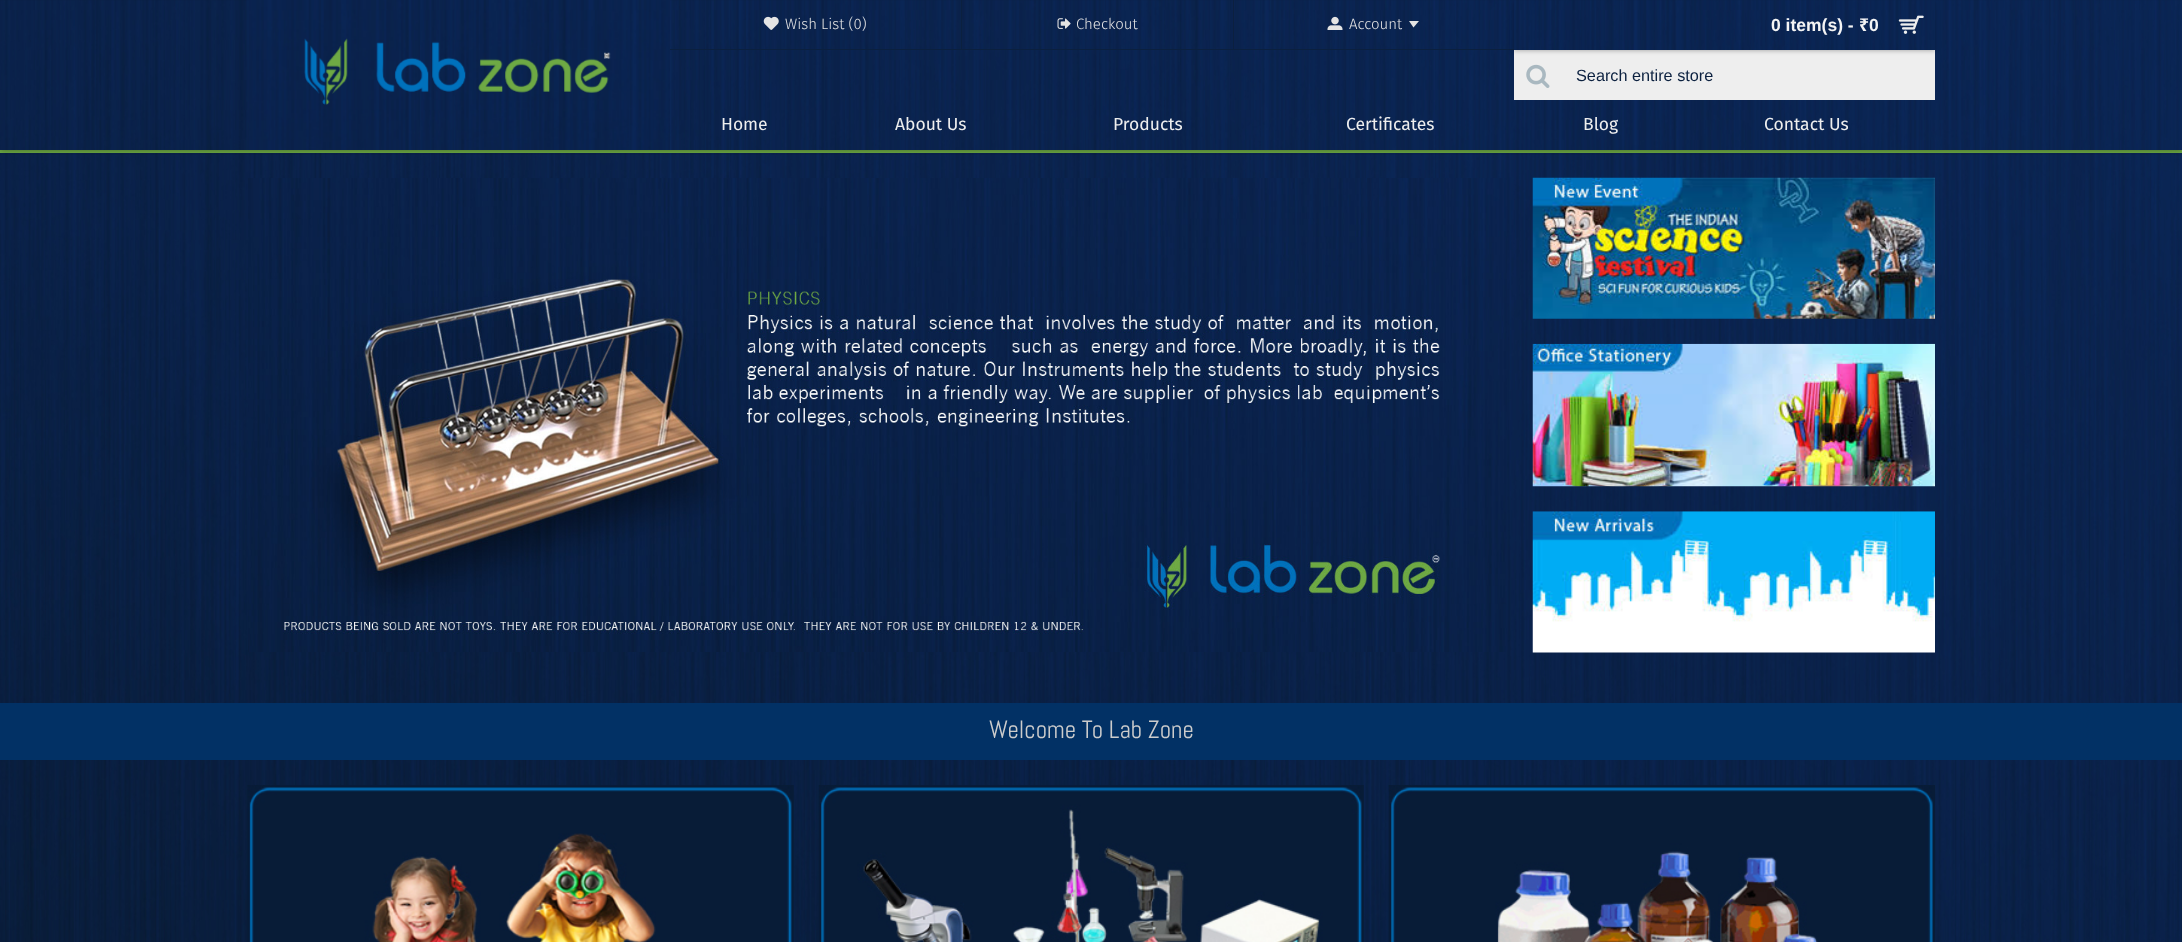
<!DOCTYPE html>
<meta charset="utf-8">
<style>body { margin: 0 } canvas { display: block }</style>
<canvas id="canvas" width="2182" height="942"></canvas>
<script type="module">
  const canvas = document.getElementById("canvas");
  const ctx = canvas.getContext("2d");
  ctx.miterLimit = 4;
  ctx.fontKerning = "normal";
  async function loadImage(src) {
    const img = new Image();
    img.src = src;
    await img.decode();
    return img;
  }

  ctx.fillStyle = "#ffffff";
  ctx.fillRect(0, 0, 2182, 942);
  ctx.drawImage(await loadImage("img1.png"), 0, 0, 2182, 942);
  ctx.fillStyle = "#6da944";
  ctx.fillRect(0, 150, 2182, 3);
  ctx.save();
  ctx.beginPath();
  ctx.rect(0, 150, 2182, 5);
  ctx.clip();
  ctx.fillStyle = "rgba(0, 0, 0, 0.4)";
  ctx.filter = "blur(3px)";
  ctx.beginPath();
  ctx.rect(0, 0, 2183, 150);
  ctx.fill();
  ctx.filter = "none";
  ctx.restore();
  ctx.drawImage(await loadImage("img2.png"), 249, 0, 421, 150);
  ctx.drawImage(await loadImage("img3.png"), 304, 38, 307, 67);
  ctx.fillStyle = "#0b203f";
  ctx.fillRect(961, 0, 1, 50);
  ctx.fillRect(670, 49, 293, 1);
  ctx.drawImage(await loadImage("img4.png"), 763, 16, 16, 14);
  ctx.font = "300 15px Fira Sans";
  ctx.fillStyle = "#e4e4e4";
  ctx.fillText("Wish List (0)", 785, 29);
  ctx.fillStyle = "#0b203f";
  ctx.fillRect(1233, 0, 1, 50);
  ctx.fillRect(963, 49, 551, 1);
  ctx.drawImage(await loadImage("img5.png"), 1057, 18, 14, 11);
  ctx.fillStyle = "#e4e4e4";
  ctx.fillText("Checkout", 1076, 29);
  ctx.drawImage(await loadImage("img6.png"), 1327, 16, 16, 14);
  ctx.fillText("Account", 1349, 29);
  ctx.beginPath();
  ctx.moveTo(1419, 21);
  ctx.lineTo(1409, 21);
  ctx.lineTo(1413.5, 27.5);
  ctx.closePath();
  ctx.fill();
  ctx.fillStyle = "#eeeeee";
  ctx.fillRect(1514, 50, 421, 50);
  ctx.save();
  ctx.beginPath();
  ctx.moveTo(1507, 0);
  ctx.lineTo(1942, 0);
  ctx.lineTo(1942, 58);
  ctx.lineTo(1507, 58);
  ctx.closePath();
  ctx.moveTo(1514, 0);
  ctx.lineTo(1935, 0);
  ctx.lineTo(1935, 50);
  ctx.lineTo(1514, 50);
  ctx.closePath();
  ctx.clip("evenodd");
  ctx.fillStyle = "rgba(0, 0, 0, 0.25)";
  ctx.filter = "blur(2px)";
  ctx.beginPath();
  ctx.rect(1514, 1, 421, 50);
  ctx.fill();
  ctx.filter = "none";
  ctx.restore();
  ctx.font = "bold 17.5px Liberation Sans";
  ctx.fillStyle = "#f4f4f4";
  ctx.fillText("0 item(s) -", 1771, 31);
  ctx.font = "bold 17.5px Noto Sans";
  ctx.fillText("₹", 1859, 31);
  ctx.font = "bold 17.5px Liberation Sans";
  ctx.fillText("0", 1869, 31);
  ctx.drawImage(await loadImage("img7.png"), 1898, 15, 26, 19);
  ctx.drawImage(await loadImage("img8.png"), 1526, 64, 24, 24);
  ctx.font = "16.25px Liberation Sans";
  ctx.fillStyle = "#0b203f";
  ctx.fillText("Search entire store", 1576, 81);
  ctx.font = "17.5px Fira Sans";
  ctx.fillStyle = "#eeeeee";
  ctx.fillText("Home", 721, 130);
  ctx.fillText("About Us", 895, 130);
  ctx.fillText("Products", 1113, 130);
  ctx.fillText("Certificates", 1346, 130);
  ctx.fillText("Blog", 1583, 130);
  ctx.fillText("Contact Us", 1764, 130);
  ctx.drawImage(await loadImage("img9.png"), 248, 178, 1259, 474);
  ctx.drawImage(await loadImage("img10.png"), 1532, 177, 403, 142);
  ctx.drawImage(await loadImage("img11.png"), 1532, 343, 403, 144);
  ctx.drawImage(await loadImage("img12.png"), 1532, 511, 403, 142);
  ctx.fillStyle = "#023165";
  ctx.fillRect(0, 703, 2182, 57);
  ctx.font = "25px Abel";
  ctx.fillStyle = "#cccccc";
  ctx.fillText("Welcome To Lab Zone", 989, 738);
  ctx.drawImage(await loadImage("img13.png"), 247, 785, 547, 157);
  ctx.drawImage(await loadImage("img14.png"), 818, 785, 546, 157);
  ctx.drawImage(await loadImage("img15.png"), 1388, 785, 547, 157);
</script>
